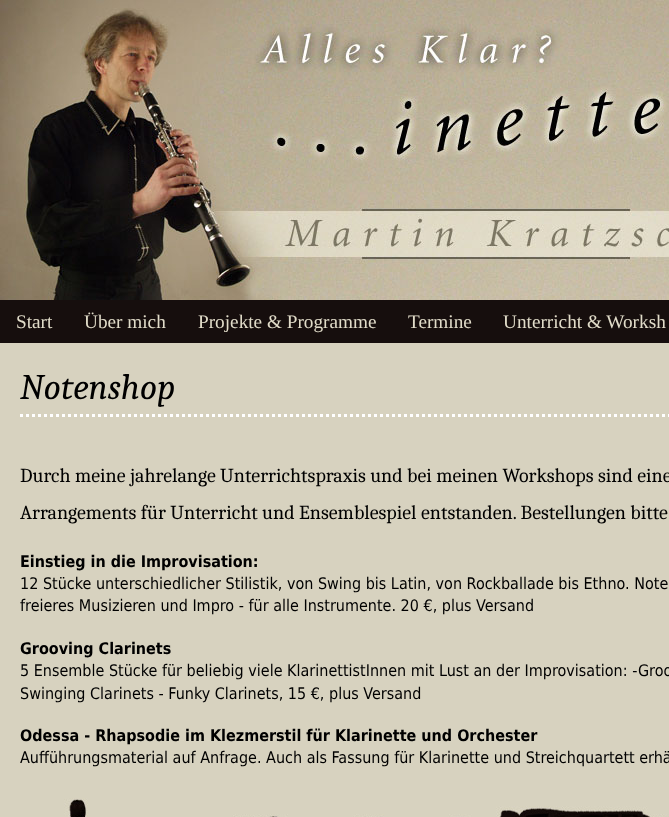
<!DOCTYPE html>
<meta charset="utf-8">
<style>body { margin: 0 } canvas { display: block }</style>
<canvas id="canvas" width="669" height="817"></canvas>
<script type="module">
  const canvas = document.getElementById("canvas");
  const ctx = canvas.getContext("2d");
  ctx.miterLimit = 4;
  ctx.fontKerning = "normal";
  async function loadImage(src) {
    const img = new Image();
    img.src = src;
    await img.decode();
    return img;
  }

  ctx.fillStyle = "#160e0d";
  ctx.fillRect(0, 0, 669, 817);
  ctx.drawImage(await loadImage("img1.png"), 0, 0, 669, 300);
  ctx.font = "19.25px Liberation Serif";
  ctx.fillStyle = "#e1dcc9";
  ctx.fillText("Start", 16, 328);
  ctx.fillText("Über mich", 84, 328);
  ctx.fillText("Projekte & Programme", 198, 328);
  ctx.fillText("Termine", 408, 328);
  ctx.fillText("Unterricht & Worksh", 503, 328);
  ctx.fillStyle = "#d7d2bf";
  ctx.fillRect(0, 343, 669, 447);
  ctx.beginPath();
  ctx.moveTo(20, 415.5);
  ctx.lineTo(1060, 415.5);
  ctx.strokeStyle = "#ffffff";
  ctx.lineWidth = 3;
  ctx.setLineDash([3, 3]);
  ctx.stroke();
  ctx.font = "italic 36px Caladea";
  ctx.fillStyle = "#000000";
  ctx.fillText("Notenshop", 20, 399);
  ctx.font = "20px Caladea";
  ctx.fillText("Durch meine jahrelange Unterrichtspraxis und bei meinen Workshops sind eine", 20, 482);
  ctx.fillText("Arrangements für Unterricht und Ensemblespiel entstanden. Bestellungen bitte", 20, 519);
  ctx.font = "bold 16px DejaVu Sans";
  ctx.fillText("Einstieg in die Improvisation:", 20, 567);
  ctx.font = "16px DejaVu Sans";
  ctx.fillText("12 Stücke unterschiedlicher Stilistik, von Swing bis Latin, von Rockballade bis Ethno. Note", 20, 589);
  ctx.fillText("freieres Musizieren und Impro - für alle Instrumente. 20 €, plus Versand", 20, 611);
  ctx.font = "bold 16px DejaVu Sans";
  ctx.fillText("Grooving Clarinets", 20, 654);
  ctx.font = "16px DejaVu Sans";
  ctx.fillText("5 Ensemble Stücke für beliebig viele KlarinettistInnen mit Lust an der Improvisation: -Groo", 20, 676);
  ctx.fillText("Swinging Clarinets - Funky Clarinets, 15 €, plus Versand", 20, 699);
  ctx.font = "bold 16px DejaVu Sans";
  ctx.fillText("Odessa - Rhapsodie im Klezmerstil für Klarinette und Orchester", 20, 741);
  ctx.font = "16px DejaVu Sans";
  ctx.fillText("Aufführungsmaterial auf Anfrage. Auch als Fassung für Klarinette und Streichquartett erhä", 20, 763);
  ctx.drawImage(await loadImage("img2.png"), 0, 790, 669, 27);
</script>
